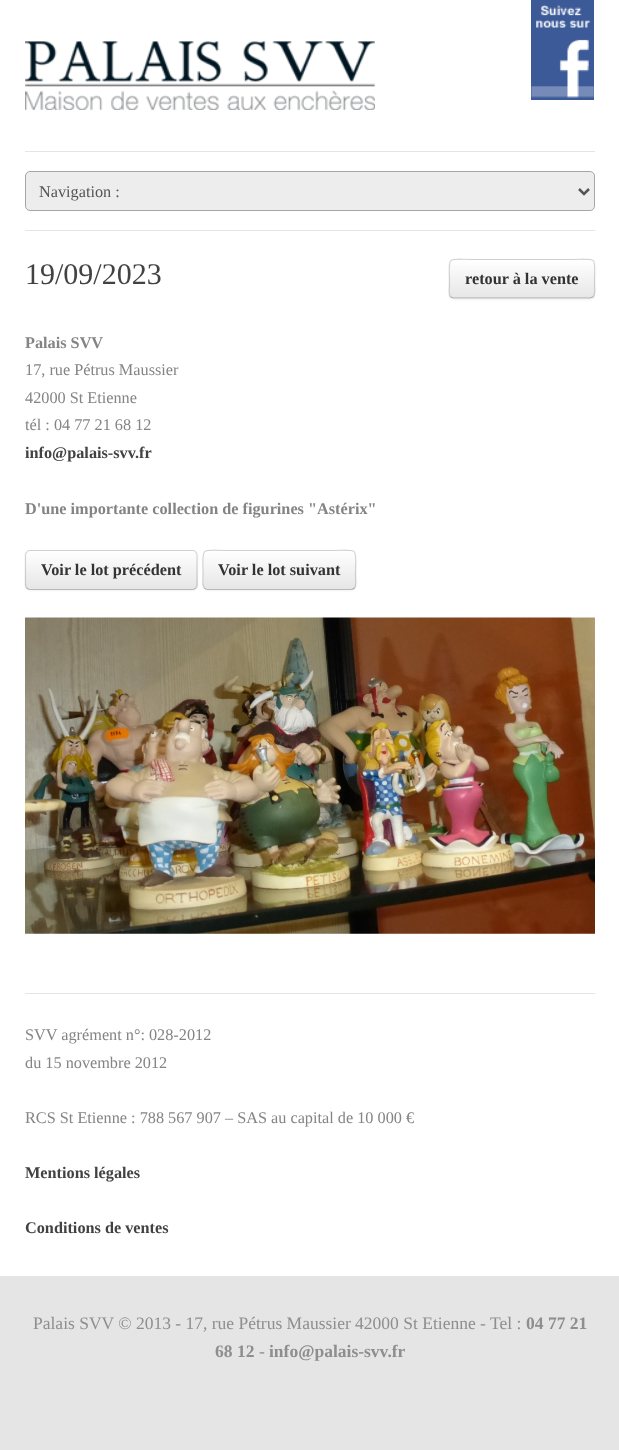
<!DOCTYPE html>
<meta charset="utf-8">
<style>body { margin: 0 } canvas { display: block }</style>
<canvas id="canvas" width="619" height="1450"></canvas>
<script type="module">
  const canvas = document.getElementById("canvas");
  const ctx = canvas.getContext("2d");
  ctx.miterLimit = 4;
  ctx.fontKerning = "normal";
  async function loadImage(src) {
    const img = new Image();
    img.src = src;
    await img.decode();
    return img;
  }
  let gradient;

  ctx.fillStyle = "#e5e5e5";
  ctx.fillRect(0, 0, 619, 1450);
  ctx.fillStyle = "#ffffff";
  ctx.fillRect(0, 0, 619, 1276);
  ctx.drawImage(await loadImage("img1.png"), 25, 41, 350, 69);
  ctx.fillStyle = "#3c5a98";
  ctx.fillRect(531, 0, 63, 100);
  ctx.drawImage(await loadImage("img2.png"), 531, 5, 63, 93);
  ctx.fillStyle = "#e5e5e5";
  ctx.fillRect(25, 151, 570, 1);
  ctx.fillRect(25, 230, 570, 1);
  ctx.fillStyle = "#ededed";
  ctx.beginPath();
  ctx.roundRect(25.5, 171.5, 569, 39, 4.5);
  ctx.fill();
  ctx.strokeStyle = "#a6a6a6";
  ctx.stroke();
  ctx.beginPath();
  ctx.moveTo(579, 189);
  ctx.lineTo(584, 194);
  ctx.lineTo(589, 189);
  ctx.strokeStyle = "#555555";
  ctx.lineWidth = 2.5;
  ctx.stroke();
  ctx.font = "16.25px Liberation Serif";
  ctx.fillStyle = "#555555";
  ctx.fillText("Navigation :", 39, 197);
  ctx.font = "30px Liberation Serif";
  ctx.fillStyle = "#424242";
  ctx.fillText("19/09/2023", 25, 284);
  ctx.fillStyle = "rgba(0, 0, 0, 0.05)";
  ctx.filter = "blur(1px)";
  ctx.beginPath();
  ctx.roundRect(449, 260, 146, 40, 5);
  ctx.fill();
  ctx.filter = "none";
  ctx.fillStyle = "#f5f5f5";
  ctx.beginPath();
  ctx.roundRect(449, 259, 146, 40, 5);
  ctx.fill();
  ctx.save();
  ctx.beginPath();
  ctx.roundRect(449, 259, 146, 40, 5);
  ctx.clip();
  gradient = ctx.createLinearGradient(522, 260, 522, 298);
  gradient.addColorStop(0, "#ffffff");
  gradient.addColorStop(1, "#e6e6e6");
  ctx.fillStyle = gradient;
  ctx.fillRect(449, 260, 146, 38);
  ctx.restore();
  ctx.beginPath();
  ctx.moveTo(593, 297);
  ctx.lineTo(590, 298);
  ctx.lineTo(453.5, 298);
  ctx.lineTo(450.5, 297);
  ctx.strokeStyle = "rgba(0, 0, 0, 0.25)";
  ctx.lineWidth = 1.2;
  ctx.stroke();
  ctx.beginPath();
  ctx.moveTo(450.5, 297);
  ctx.bezierCurveTo(448, 294, 449.5, 286.5, 449.5, 284);
  ctx.bezierCurveTo(449.5, 254, 444.5, 259.5, 476.5, 259.5);
  ctx.lineTo(567.5, 259.5);
  ctx.bezierCurveTo(599.5, 259.5, 594.5, 254, 594.5, 284);
  ctx.bezierCurveTo(594.5, 286.5, 596, 294, 593, 297);
  ctx.strokeStyle = "rgba(0, 0, 0, 0.15)";
  ctx.stroke();
  ctx.font = "bold 16.25px Liberation Serif";
  ctx.fillStyle = "#333333";
  ctx.fillText("retour à la vente", 465, 284);
  ctx.fillStyle = "#848484";
  ctx.fillText("Palais SVV", 25, 348);
  ctx.font = "16.25px Liberation Serif";
  ctx.fillText("17, rue Pétrus Maussier", 25, 375);
  ctx.fillText("42000 St Etienne", 25, 403);
  ctx.fillText("tél : 04 77 21 68 12", 25, 430);
  ctx.font = "bold 16.25px Liberation Serif";
  ctx.fillStyle = "#424242";
  ctx.fillText("info@palais-svv.fr", 25, 458);
  ctx.fillStyle = "#848484";
  ctx.fillText("D'une importante collection de figurines \"Astérix\"", 25, 514);
  ctx.fillStyle = "rgba(0, 0, 0, 0.05)";
  ctx.filter = "blur(1px)";
  ctx.beginPath();
  ctx.roundRect(25, 551, 173, 40, 5);
  ctx.fill();
  ctx.filter = "none";
  ctx.fillStyle = "#f5f5f5";
  ctx.beginPath();
  ctx.roundRect(25, 550, 173, 40, 5);
  ctx.fill();
  ctx.save();
  ctx.beginPath();
  ctx.roundRect(25, 550, 173, 40, 5);
  ctx.clip();
  gradient = ctx.createLinearGradient(111, 551, 111, 589);
  gradient.addColorStop(0, "#ffffff");
  gradient.addColorStop(1, "#e6e6e6");
  ctx.fillStyle = gradient;
  ctx.fillRect(25, 551, 173, 38);
  ctx.restore();
  ctx.beginPath();
  ctx.moveTo(195.5, 588);
  ctx.bezierCurveTo(195, 589, 193.5, 589.5, 192.5, 589.5);
  ctx.lineTo(30, 589.5);
  ctx.bezierCurveTo(29, 589.5, 27.5, 589, 27, 588);
  ctx.strokeStyle = "rgba(0, 0, 0, 0.25)";
  ctx.stroke();
  ctx.beginPath();
  ctx.moveTo(27, 588);
  ctx.bezierCurveTo(26, 587.5, 25.5, 586, 25.5, 585);
  ctx.lineTo(25.5, 555);
  ctx.bezierCurveTo(25.5, 554, 26, 552.5, 27, 552);
  ctx.bezierCurveTo(27.5, 551, 29, 550.5, 30, 550.5);
  ctx.lineTo(192.5, 550.5);
  ctx.bezierCurveTo(193.5, 550.5, 195, 551, 195.5, 552);
  ctx.bezierCurveTo(196.5, 552.5, 197, 554, 197, 555);
  ctx.lineTo(197, 585);
  ctx.bezierCurveTo(197, 586, 196.5, 587.5, 195.5, 588);
  ctx.strokeStyle = "rgba(0, 0, 0, 0.15)";
  ctx.stroke();
  ctx.fillStyle = "#333333";
  ctx.fillText("Voir le lot précédent", 41, 575);
  ctx.fillStyle = "rgba(0, 0, 0, 0.05)";
  ctx.filter = "blur(1px)";
  ctx.beginPath();
  ctx.roundRect(203, 551, 153, 40, 5);
  ctx.fill();
  ctx.filter = "none";
  ctx.fillStyle = "#f5f5f5";
  ctx.beginPath();
  ctx.roundRect(203, 550, 153, 40, 5);
  ctx.fill();
  ctx.save();
  ctx.beginPath();
  ctx.roundRect(203, 550, 153, 40, 5);
  ctx.clip();
  gradient = ctx.createLinearGradient(279, 551, 279, 589);
  gradient.addColorStop(0, "#ffffff");
  gradient.addColorStop(1, "#e6e6e6");
  ctx.fillStyle = gradient;
  ctx.fillRect(203, 551, 153, 38);
  ctx.restore();
  ctx.beginPath();
  ctx.moveTo(354.5, 588);
  ctx.bezierCurveTo(353.5, 589, 352.5, 589.5, 351, 589.5);
  ctx.lineTo(207.5, 589.5);
  ctx.bezierCurveTo(206.5, 589.5, 205, 589, 204.5, 588);
  ctx.strokeStyle = "rgba(0, 0, 0, 0.25)";
  ctx.stroke();
  ctx.beginPath();
  ctx.moveTo(204.5, 588);
  ctx.bezierCurveTo(201.5, 585.5, 203, 578, 203, 575);
  ctx.bezierCurveTo(203, 545, 198.5, 550.5, 231.5, 550.5);
  ctx.lineTo(327.5, 550.5);
  ctx.bezierCurveTo(360.5, 550.5, 355.5, 545, 355.5, 575);
  ctx.bezierCurveTo(355.5, 578, 357, 585.5, 354.5, 588);
  ctx.strokeStyle = "rgba(0, 0, 0, 0.15)";
  ctx.stroke();
  ctx.fillStyle = "#333333";
  ctx.fillText("Voir le lot suivant", 218, 575);
  ctx.drawImage(await loadImage("img3.png"), 25, 617, 570, 317);
  ctx.fillStyle = "#e5e5e5";
  ctx.fillRect(25, 993, 570, 1);
  ctx.font = "16.25px Liberation Serif";
  ctx.fillStyle = "#848484";
  ctx.fillText("SVV agrément n°: 028-2012", 25, 1040);
  ctx.fillText("du 15 novembre 2012", 25, 1068);
  ctx.fillText("RCS St Etienne : 788 567 907 – SAS au capital de 10 000 €", 25, 1123);
  ctx.font = "bold 16.25px Liberation Serif";
  ctx.fillStyle = "#424242";
  ctx.fillText("Mentions légales", 25, 1178);
  ctx.fillText("Conditions de ventes", 25, 1233);
  ctx.font = "17.5px Liberation Serif";
  ctx.fillStyle = "#8e8e8e";
  ctx.fillText("Palais SVV © 2013 - 17, rue Pétrus Maussier 42000 St Etienne - Tel :", 33, 1329);
  ctx.font = "bold 17.5px Liberation Serif";
  ctx.fillText("04 77 21", 526, 1329);
  ctx.fillText("68 12", 215, 1357);
  ctx.font = "17.5px Liberation Serif";
  ctx.fillText("-", 259, 1357);
  ctx.font = "bold 17.5px Liberation Serif";
  ctx.fillText("info@palais-svv.fr", 269, 1357);
</script>
